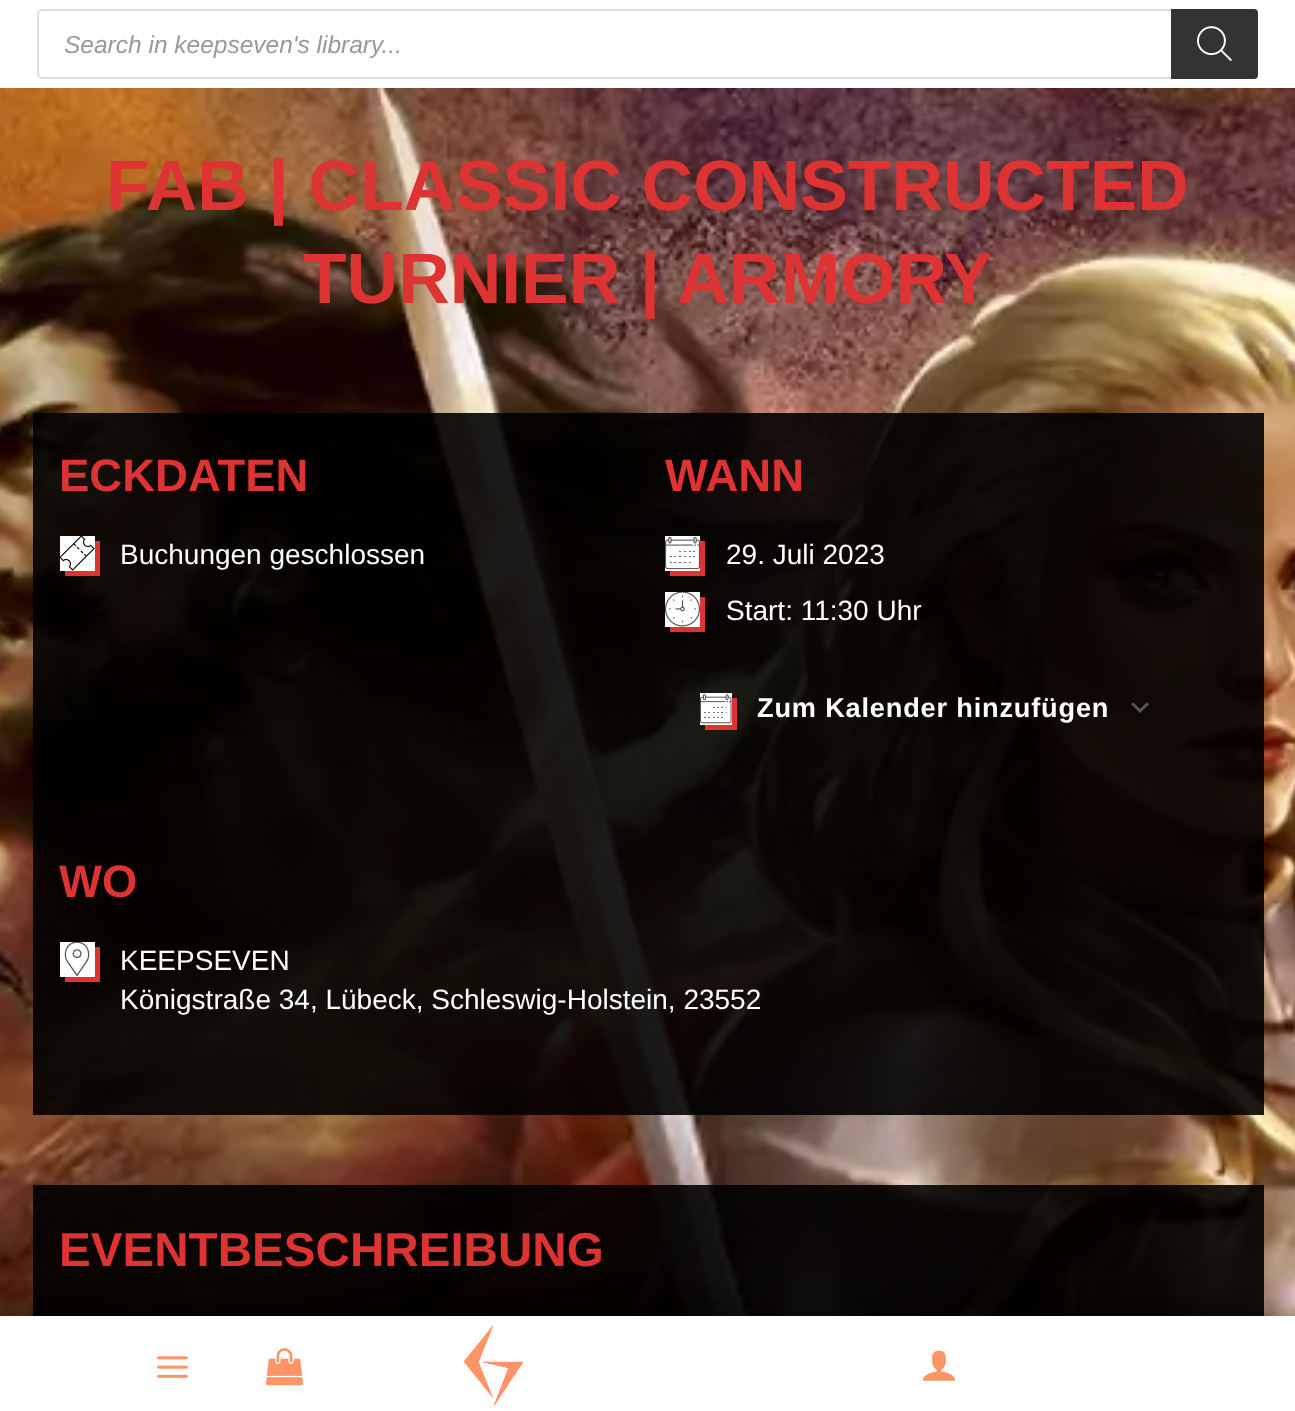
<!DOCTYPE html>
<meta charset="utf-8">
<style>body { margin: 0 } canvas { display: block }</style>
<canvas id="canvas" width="1295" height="1411"></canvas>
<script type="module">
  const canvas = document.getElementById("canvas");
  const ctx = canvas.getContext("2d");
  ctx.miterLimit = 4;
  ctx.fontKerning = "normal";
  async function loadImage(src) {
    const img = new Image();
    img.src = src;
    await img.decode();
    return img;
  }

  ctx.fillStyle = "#ffffff";
  ctx.fillRect(0, 0, 1295, 1411);
  ctx.beginPath();
  ctx.roundRect(38, 10, 1219, 68, 4);
  ctx.strokeStyle = "#dddddd";
  ctx.lineWidth = 2;
  ctx.stroke();
  ctx.font = "italic 24.5px Liberation Sans";
  ctx.fillStyle = "#999999";
  ctx.fillText("Search in keepseven's library...", 64, 53);
  ctx.fillStyle = "#333333";
  ctx.beginPath();
  ctx.roundRect(1171, 9, 87, 70, [0, 4, 4, 0]);
  ctx.fill();
  ctx.drawImage(await loadImage("img1.png"), 1197, 26, 35, 36);
  ctx.drawImage(await loadImage("img6.png"), 0, 88, 1295, 1228);
  ctx.fillStyle = "rgba(0, 0, 0, 0.89)";
  ctx.fillRect(33, 1185, 1231, 131);
  ctx.fillStyle = "rgba(0, 0, 0, 0.1)";
  ctx.filter = "blur(13px)";
  ctx.beginPath();
  ctx.rect(-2, 1309, 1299, 100);
  ctx.fill();
  ctx.filter = "none";
  ctx.fillStyle = "rgba(0, 0, 0, 0.14)";
  ctx.filter = "blur(8px)";
  ctx.beginPath();
  ctx.rect(0, 1316, 1295, 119);
  ctx.fill();
  ctx.filter = "none";
  ctx.fillStyle = "#ffffff";
  ctx.fillRect(0, 1316, 1295, 95);
  ctx.drawImage(await loadImage("img2.png"), 157, 1356, 31, 22);
  ctx.drawImage(await loadImage("img3.png"), 266, 1348, 37, 38);
  ctx.drawImage(await loadImage("img4.png"), 464, 1325, 60, 82);
  ctx.drawImage(await loadImage("img5.png"), 922, 1350, 34, 31);
  ctx.font = "bold 71.4px Liberation Sans";
  ctx.fillStyle = "#dd3333";
  ctx.fillText("FAB | CLASSIC CONSTRUCTED", 106, 210);
  ctx.fillText("TURNIER | ARMORY", 303, 303);
  ctx.fillStyle = "rgba(0, 0, 0, 0.89)";
  ctx.fillRect(33, 413, 1231, 702);
  ctx.font = "bold 45.5px Liberation Sans";
  ctx.fillStyle = "#dd3333";
  ctx.fillText("ECKDATEN", 59, 491);
  ctx.beginPath();
  ctx.moveTo(65, 570.5);
  ctx.lineTo(65, 576);
  ctx.lineTo(100, 576);
  ctx.lineTo(100, 541);
  ctx.lineTo(94.5, 541);
  ctx.lineTo(94.5, 570.5);
  ctx.closePath();
  ctx.fill();
  ctx.fillStyle = "#ffffff";
  ctx.fillRect(60, 536, 35, 35);
  ctx.drawImage(await loadImage("img7.png"), 60, 536, 35, 35);
  ctx.font = "28px Liberation Sans";
  ctx.fillText("Buchungen geschlossen", 120, 564);
  ctx.font = "bold 45.5px Liberation Sans";
  ctx.fillStyle = "#dd3333";
  ctx.fillText("WANN", 665, 491);
  ctx.beginPath();
  ctx.moveTo(670, 570.5);
  ctx.lineTo(670, 576);
  ctx.lineTo(705, 576);
  ctx.lineTo(705, 541);
  ctx.lineTo(700, 541);
  ctx.lineTo(700, 570.5);
  ctx.closePath();
  ctx.fill();
  ctx.fillStyle = "#ffffff";
  ctx.fillRect(665, 536, 35, 35);
  ctx.drawImage(await loadImage("img8.png"), 665, 536, 35, 34);
  ctx.font = "28px Liberation Sans";
  ctx.fillText("29. Juli 2023", 726, 564);
  ctx.fillStyle = "#dd3333";
  ctx.beginPath();
  ctx.moveTo(670, 626.5);
  ctx.lineTo(670, 632);
  ctx.lineTo(705, 632);
  ctx.lineTo(705, 597);
  ctx.lineTo(700, 597);
  ctx.lineTo(700, 626.5);
  ctx.closePath();
  ctx.fill();
  ctx.fillStyle = "#ffffff";
  ctx.fillRect(665, 592, 35, 35);
  ctx.drawImage(await loadImage("img9.png"), 665, 592, 35, 35);
  ctx.fillText("Start: 11:30 Uhr", 726, 620);
  ctx.fillStyle = "#555555";
  ctx.beginPath();
  ctx.moveTo(1133.5, 702.5);
  ctx.lineTo(1140, 709);
  ctx.lineTo(1146.5, 702.5);
  ctx.lineTo(1149.5, 704);
  ctx.lineTo(1140, 713);
  ctx.lineTo(1131, 704);
  ctx.closePath();
  ctx.fill();
  ctx.fillStyle = "#dd3333";
  ctx.beginPath();
  ctx.moveTo(705, 724.5);
  ctx.lineTo(705, 730);
  ctx.lineTo(737, 730);
  ctx.lineTo(737, 698);
  ctx.lineTo(731.5, 698);
  ctx.lineTo(731.5, 724.5);
  ctx.closePath();
  ctx.fill();
  ctx.fillStyle = "#ffffff";
  ctx.fillRect(700, 693, 32, 32);
  ctx.drawImage(await loadImage("img10.png"), 700, 694, 32, 30);
  ctx.letterSpacing = "0.8px";
  ctx.font = "bold 27.2px Liberation Sans";
  ctx.fillText("Zum Kalender hinzufügen", 757, 717);
  ctx.letterSpacing = "0px";
  ctx.font = "bold 45.5px Liberation Sans";
  ctx.fillStyle = "#dd3333";
  ctx.fillText("WO", 59, 897);
  ctx.beginPath();
  ctx.moveTo(65, 976.5);
  ctx.lineTo(65, 982);
  ctx.lineTo(100, 982);
  ctx.lineTo(100, 947);
  ctx.lineTo(94.5, 947);
  ctx.lineTo(94.5, 976.5);
  ctx.closePath();
  ctx.fill();
  ctx.fillStyle = "#ffffff";
  ctx.fillRect(60, 942, 35, 35);
  ctx.drawImage(await loadImage("img11.png"), 64, 942, 26, 35);
  ctx.font = "28px Liberation Sans";
  ctx.fillText("KEEPSEVEN", 120, 970);
  ctx.fillText("Königstraße 34, Lübeck, Schleswig-Holstein, 23552", 120, 1009);
  ctx.font = "bold 47.6px Liberation Sans";
  ctx.fillStyle = "#dd3333";
  ctx.fillText("EVENTBESCHREIBUNG", 59, 1266);
</script>
